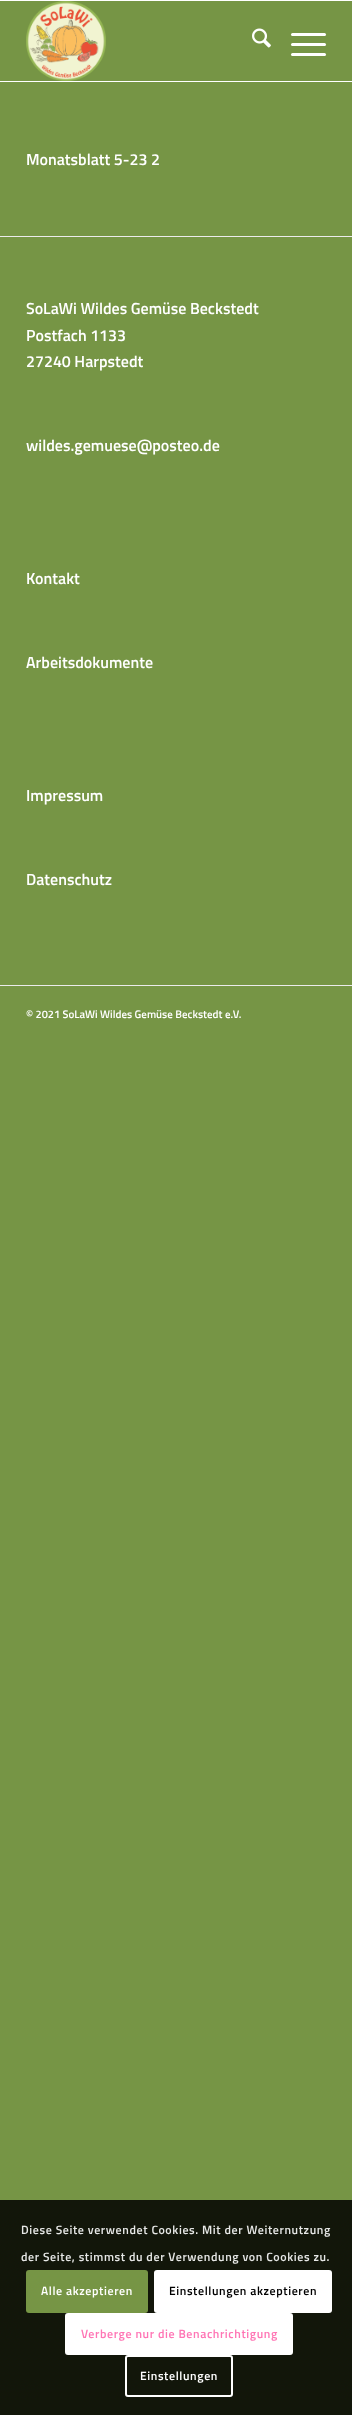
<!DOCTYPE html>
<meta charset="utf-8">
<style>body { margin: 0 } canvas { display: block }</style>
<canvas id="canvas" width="352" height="2415"></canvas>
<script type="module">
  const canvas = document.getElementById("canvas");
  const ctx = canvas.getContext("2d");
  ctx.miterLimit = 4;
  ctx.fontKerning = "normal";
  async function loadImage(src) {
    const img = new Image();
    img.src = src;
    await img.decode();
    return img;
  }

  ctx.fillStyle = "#769545";
  ctx.fillRect(0, 0, 352, 2415);
  ctx.fillStyle = "#ffffff";
  ctx.fillRect(0, 0, 352, 1);
  ctx.fillRect(0, 81, 352, 1);
  ctx.drawImage(await loadImage("img1.png"), 26, 1, 80, 80);
  ctx.drawImage(await loadImage("img2.png"), 252, 28, 19, 20);
  ctx.beginPath();
  ctx.roundRect(291, 43, 35, 3, 1.5);
  ctx.fill();
  ctx.beginPath();
  ctx.roundRect(291, 33, 35, 3, 1.5);
  ctx.fill();
  ctx.beginPath();
  ctx.roundRect(291, 53, 35, 3, 1.5);
  ctx.fill();
  ctx.font = "600 16px Titillium Web";
  ctx.fillText("Monatsblatt 5-23 2", 26, 165);
  ctx.fillStyle = "#ebebeb";
  ctx.fillRect(0, 236, 352, 1);
  ctx.fillStyle = "#ffffff";
  ctx.fillText("SoLaWi Wildes Gemüse Beckstedt", 26, 314);
  ctx.fillText("Postfach 1133", 26, 341);
  ctx.fillText("27240 Harpstedt", 26, 367);
  ctx.fillText("wildes.gemuese@posteo.de", 26, 451);
  ctx.fillText("Kontakt", 26, 584);
  ctx.fillText("Arbeitsdokumente", 26, 668);
  ctx.fillText("Impressum", 26, 801);
  ctx.fillText("Datenschutz", 26, 885);
  ctx.fillStyle = "#ebebeb";
  ctx.fillRect(0, 985, 352, 1);
  ctx.font = "600 11px Titillium Web";
  ctx.fillStyle = "#ffffff";
  ctx.fillText("© 2021 SoLaWi Wildes Gemüse Beckstedt e.V.", 26, 1018);
  ctx.fillStyle = "#12160a";
  ctx.fillRect(0, 2200, 352, 215);
  ctx.letterSpacing = "0.6px";
  ctx.font = "600 12px Titillium Web";
  ctx.fillStyle = "#e7e8e7";
  ctx.fillText("Diese Seite verwendet Cookies. Mit der Weiternutzung", 21, 2234);
  ctx.fillText("der Seite, stimmst du der Verwendung von Cookies zu.", 21, 2261);
  ctx.fillStyle = "#769545";
  ctx.beginPath();
  ctx.roundRect(26, 2270, 122, 43, 3);
  ctx.fill();
  ctx.fillStyle = "#ffffff";
  ctx.fillText("Alle akzeptieren", 41, 2295);
  ctx.beginPath();
  ctx.roundRect(154, 2270, 178, 43, 3);
  ctx.fill();
  ctx.fillStyle = "#000000";
  ctx.fillText("Einstellungen akzeptieren", 169, 2295);
  ctx.fillStyle = "#ffffff";
  ctx.beginPath();
  ctx.roundRect(66, 2314, 226, 40, 2);
  ctx.fill();
  ctx.strokeStyle = "#ffffff";
  ctx.lineWidth = 2;
  ctx.stroke();
  ctx.fillStyle = "#ff75b5";
  ctx.fillText("Verberge nur die Benachrichtigung", 81, 2338);
  ctx.beginPath();
  ctx.roundRect(126, 2356, 106, 40, 2);
  ctx.stroke();
  ctx.fillStyle = "#ffffff";
  ctx.fillText("Einstellungen", 140, 2380);
</script>
